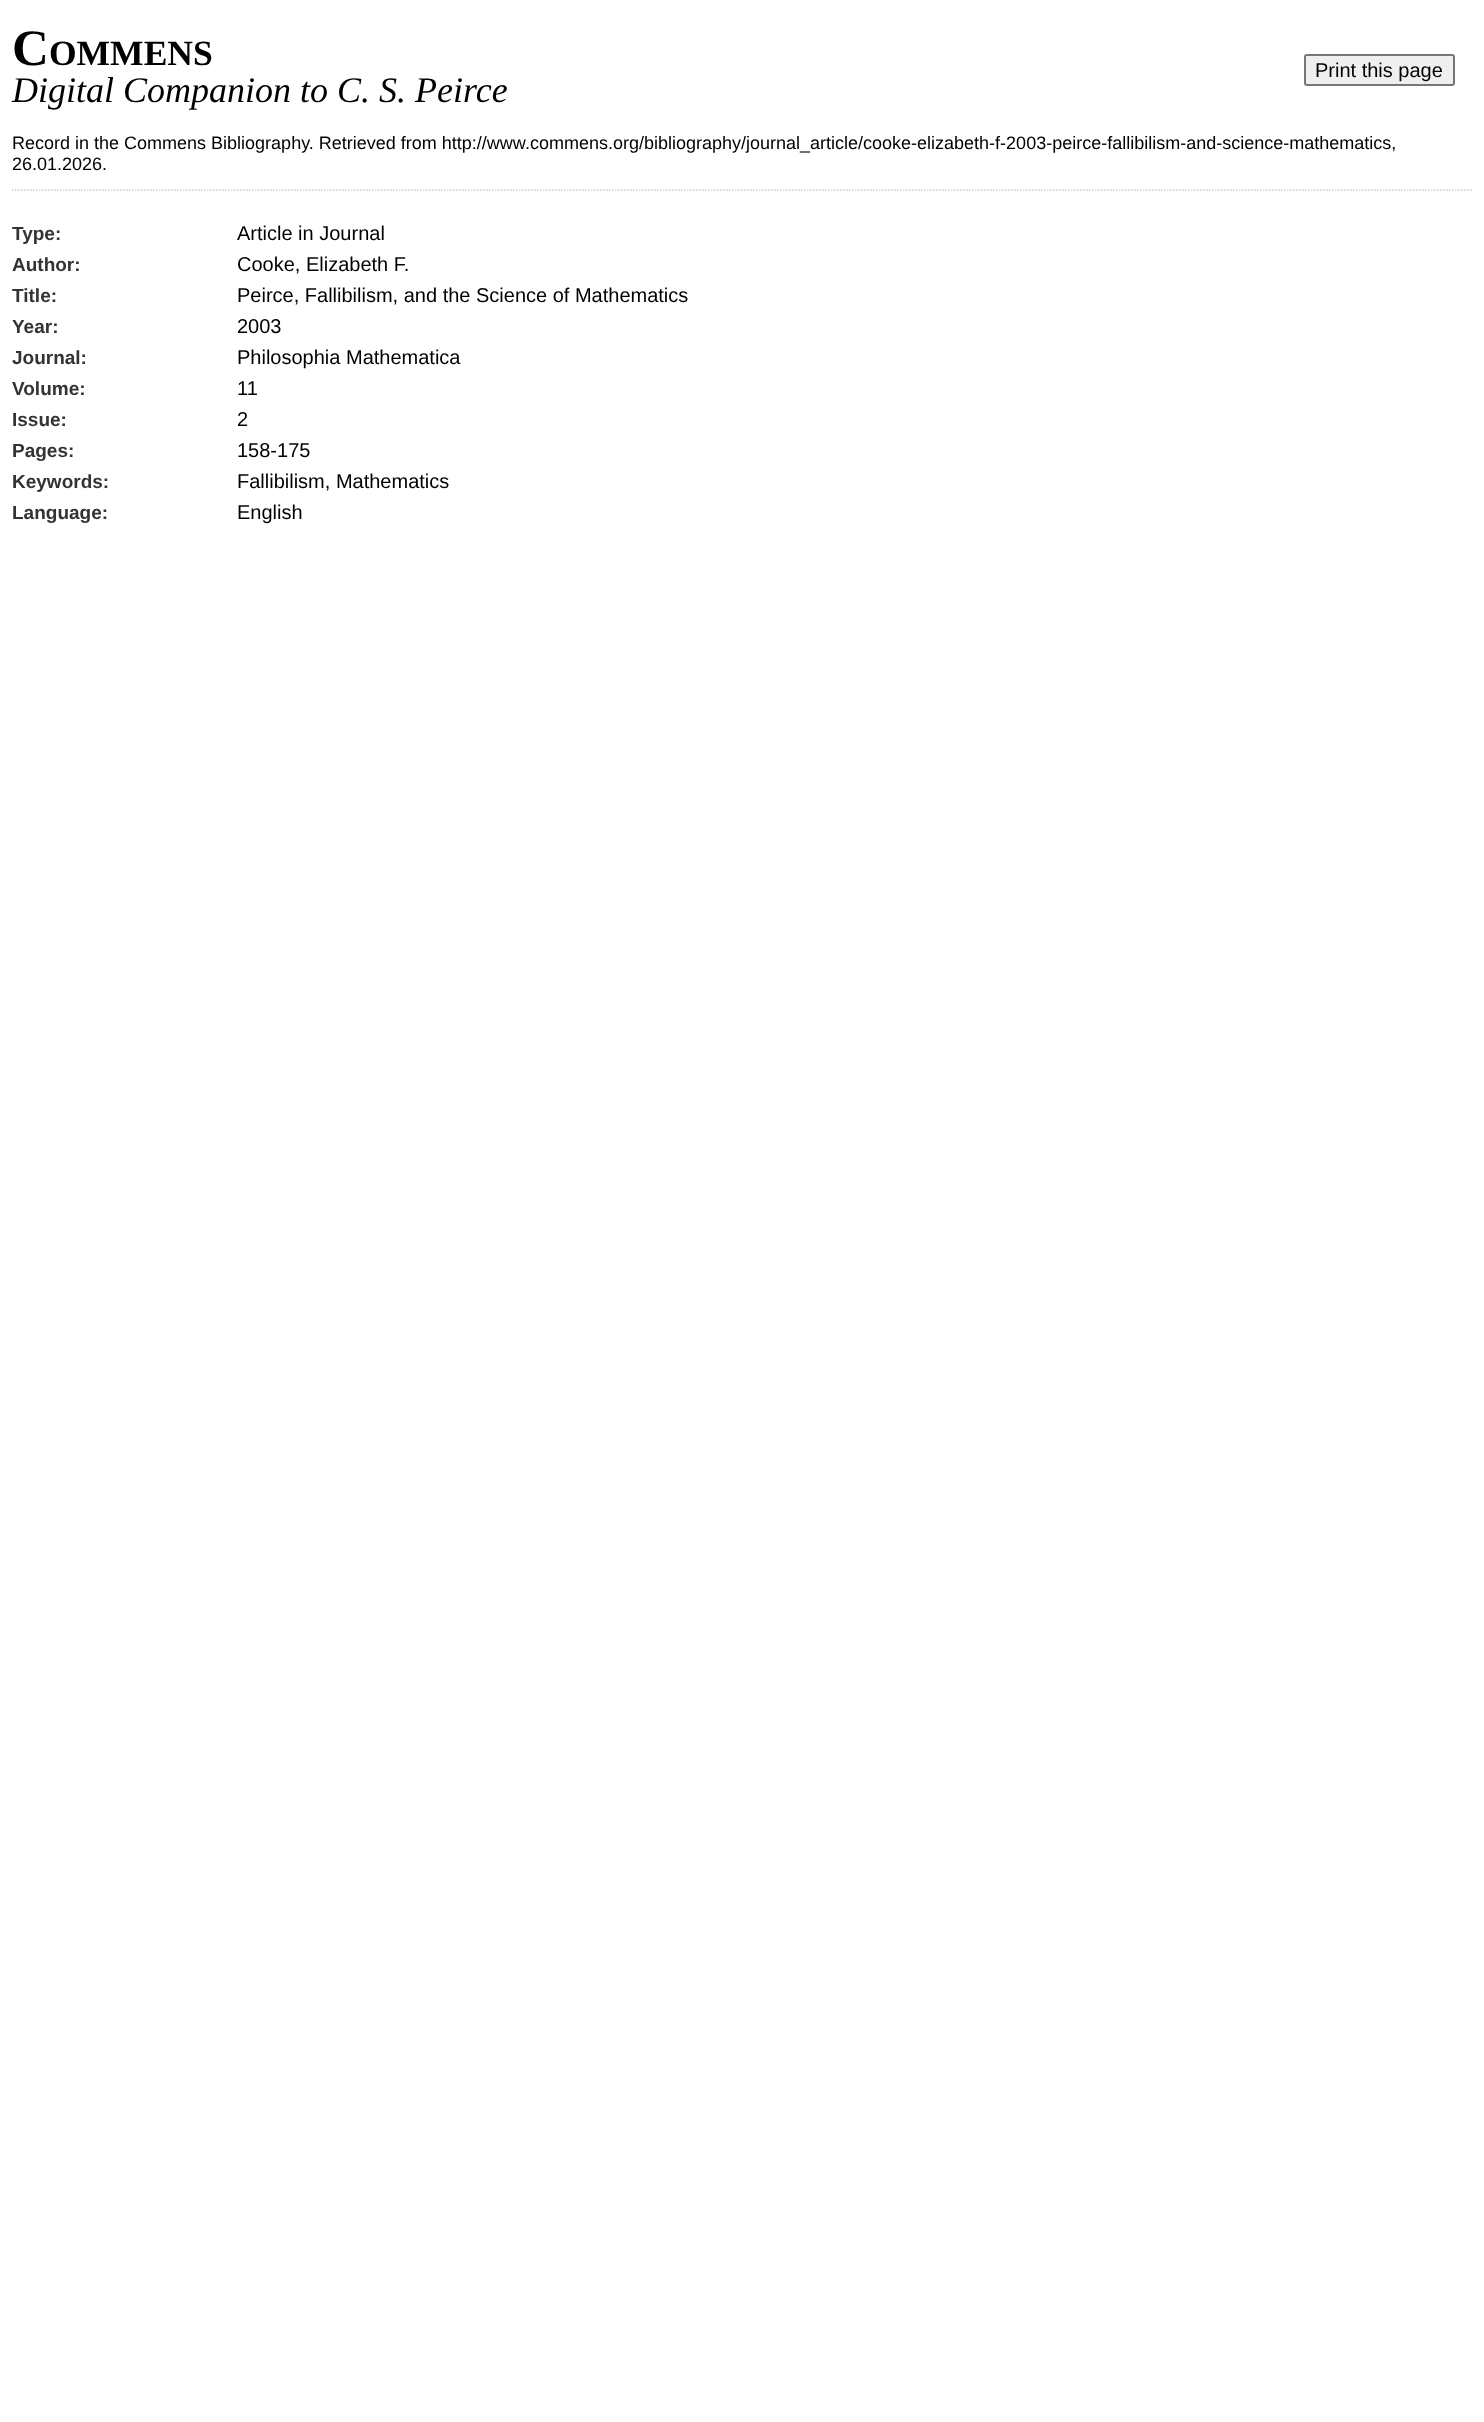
<!DOCTYPE html>
<meta charset="utf-8">
<style>body { margin: 0 } canvas { display: block }</style>
<canvas id="canvas" width="1484" height="2422"></canvas>
<script type="module">
  const canvas = document.getElementById("canvas");
  const ctx = canvas.getContext("2d");
  ctx.miterLimit = 4;
  ctx.fontKerning = "normal";

  ctx.fillStyle = "#ffffff";
  ctx.fillRect(0, 0, 1484, 2422);
  ctx.font = "bold 51px Liberation Serif";
  ctx.fillStyle = "#000000";
  ctx.fillText("C", 12, 65);
  ctx.font = "bold 35.5px Liberation Serif";
  ctx.fillText("OMMENS", 49, 65);
  ctx.font = "italic 36px Liberation Serif";
  ctx.fillText("Digital Companion to C. S. Peirce", 12, 102);
  ctx.fillStyle = "#efefef";
  ctx.beginPath();
  ctx.roundRect(1305, 55, 149, 30, 2);
  ctx.fill();
  ctx.strokeStyle = "#767676";
  ctx.lineWidth = 2;
  ctx.stroke();
  ctx.font = "20px Liberation Sans";
  ctx.fillStyle = "#000000";
  ctx.fillText("Print this page", 1315, 77);
  ctx.beginPath();
  ctx.moveTo(12, 190);
  ctx.lineTo(1473, 190);
  ctx.strokeStyle = "#cccccc";
  ctx.lineWidth = 1.5;
  ctx.setLineDash([1.5, 1.5]);
  ctx.stroke();
  ctx.font = "18px Liberation Sans";
  ctx.fillText("Record in the Commens Bibliography. Retrieved from http://www.commens.org/bibliography/journal_article/cooke-elizabeth-f-2003-peirce-fallibilism-and-science-mathematics,", 12, 149);
  ctx.fillText("26.01.2026.", 12, 170);
  ctx.font = "bold 19px Liberation Sans";
  ctx.fillStyle = "#333333";
  ctx.fillText("Type:", 12, 240);
  ctx.font = "20px Liberation Sans";
  ctx.fillStyle = "#000000";
  ctx.fillText("Article in Journal", 237, 240);
  ctx.font = "bold 19px Liberation Sans";
  ctx.fillStyle = "#333333";
  ctx.fillText("Author:", 12, 271);
  ctx.font = "20px Liberation Sans";
  ctx.fillStyle = "#000000";
  ctx.fillText("Cooke, Elizabeth F.", 237, 271);
  ctx.font = "bold 19px Liberation Sans";
  ctx.fillStyle = "#333333";
  ctx.fillText("Title:", 12, 302);
  ctx.font = "20px Liberation Sans";
  ctx.fillStyle = "#000000";
  ctx.fillText("Peirce, Fallibilism, and the Science of Mathematics", 237, 302);
  ctx.font = "bold 19px Liberation Sans";
  ctx.fillStyle = "#333333";
  ctx.fillText("Year:", 12, 333);
  ctx.font = "20px Liberation Sans";
  ctx.fillStyle = "#000000";
  ctx.fillText("2003", 237, 333);
  ctx.font = "bold 19px Liberation Sans";
  ctx.fillStyle = "#333333";
  ctx.fillText("Journal:", 12, 364);
  ctx.font = "20px Liberation Sans";
  ctx.fillStyle = "#000000";
  ctx.fillText("Philosophia Mathematica", 237, 364);
  ctx.font = "bold 19px Liberation Sans";
  ctx.fillStyle = "#333333";
  ctx.fillText("Volume:", 12, 395);
  ctx.font = "20px Liberation Sans";
  ctx.fillStyle = "#000000";
  ctx.fillText("11", 237, 395);
  ctx.font = "bold 19px Liberation Sans";
  ctx.fillStyle = "#333333";
  ctx.fillText("Issue:", 12, 426);
  ctx.font = "20px Liberation Sans";
  ctx.fillStyle = "#000000";
  ctx.fillText("2", 237, 426);
  ctx.font = "bold 19px Liberation Sans";
  ctx.fillStyle = "#333333";
  ctx.fillText("Pages:", 12, 457);
  ctx.font = "20px Liberation Sans";
  ctx.fillStyle = "#000000";
  ctx.fillText("158-175", 237, 457);
  ctx.font = "bold 19px Liberation Sans";
  ctx.fillStyle = "#333333";
  ctx.fillText("Keywords:", 12, 488);
  ctx.font = "20px Liberation Sans";
  ctx.fillStyle = "#000000";
  ctx.fillText("Fallibilism, Mathematics", 237, 488);
  ctx.font = "bold 19px Liberation Sans";
  ctx.fillStyle = "#333333";
  ctx.fillText("Language:", 12, 519);
  ctx.font = "20px Liberation Sans";
  ctx.fillStyle = "#000000";
  ctx.fillText("English", 237, 519);
</script>
